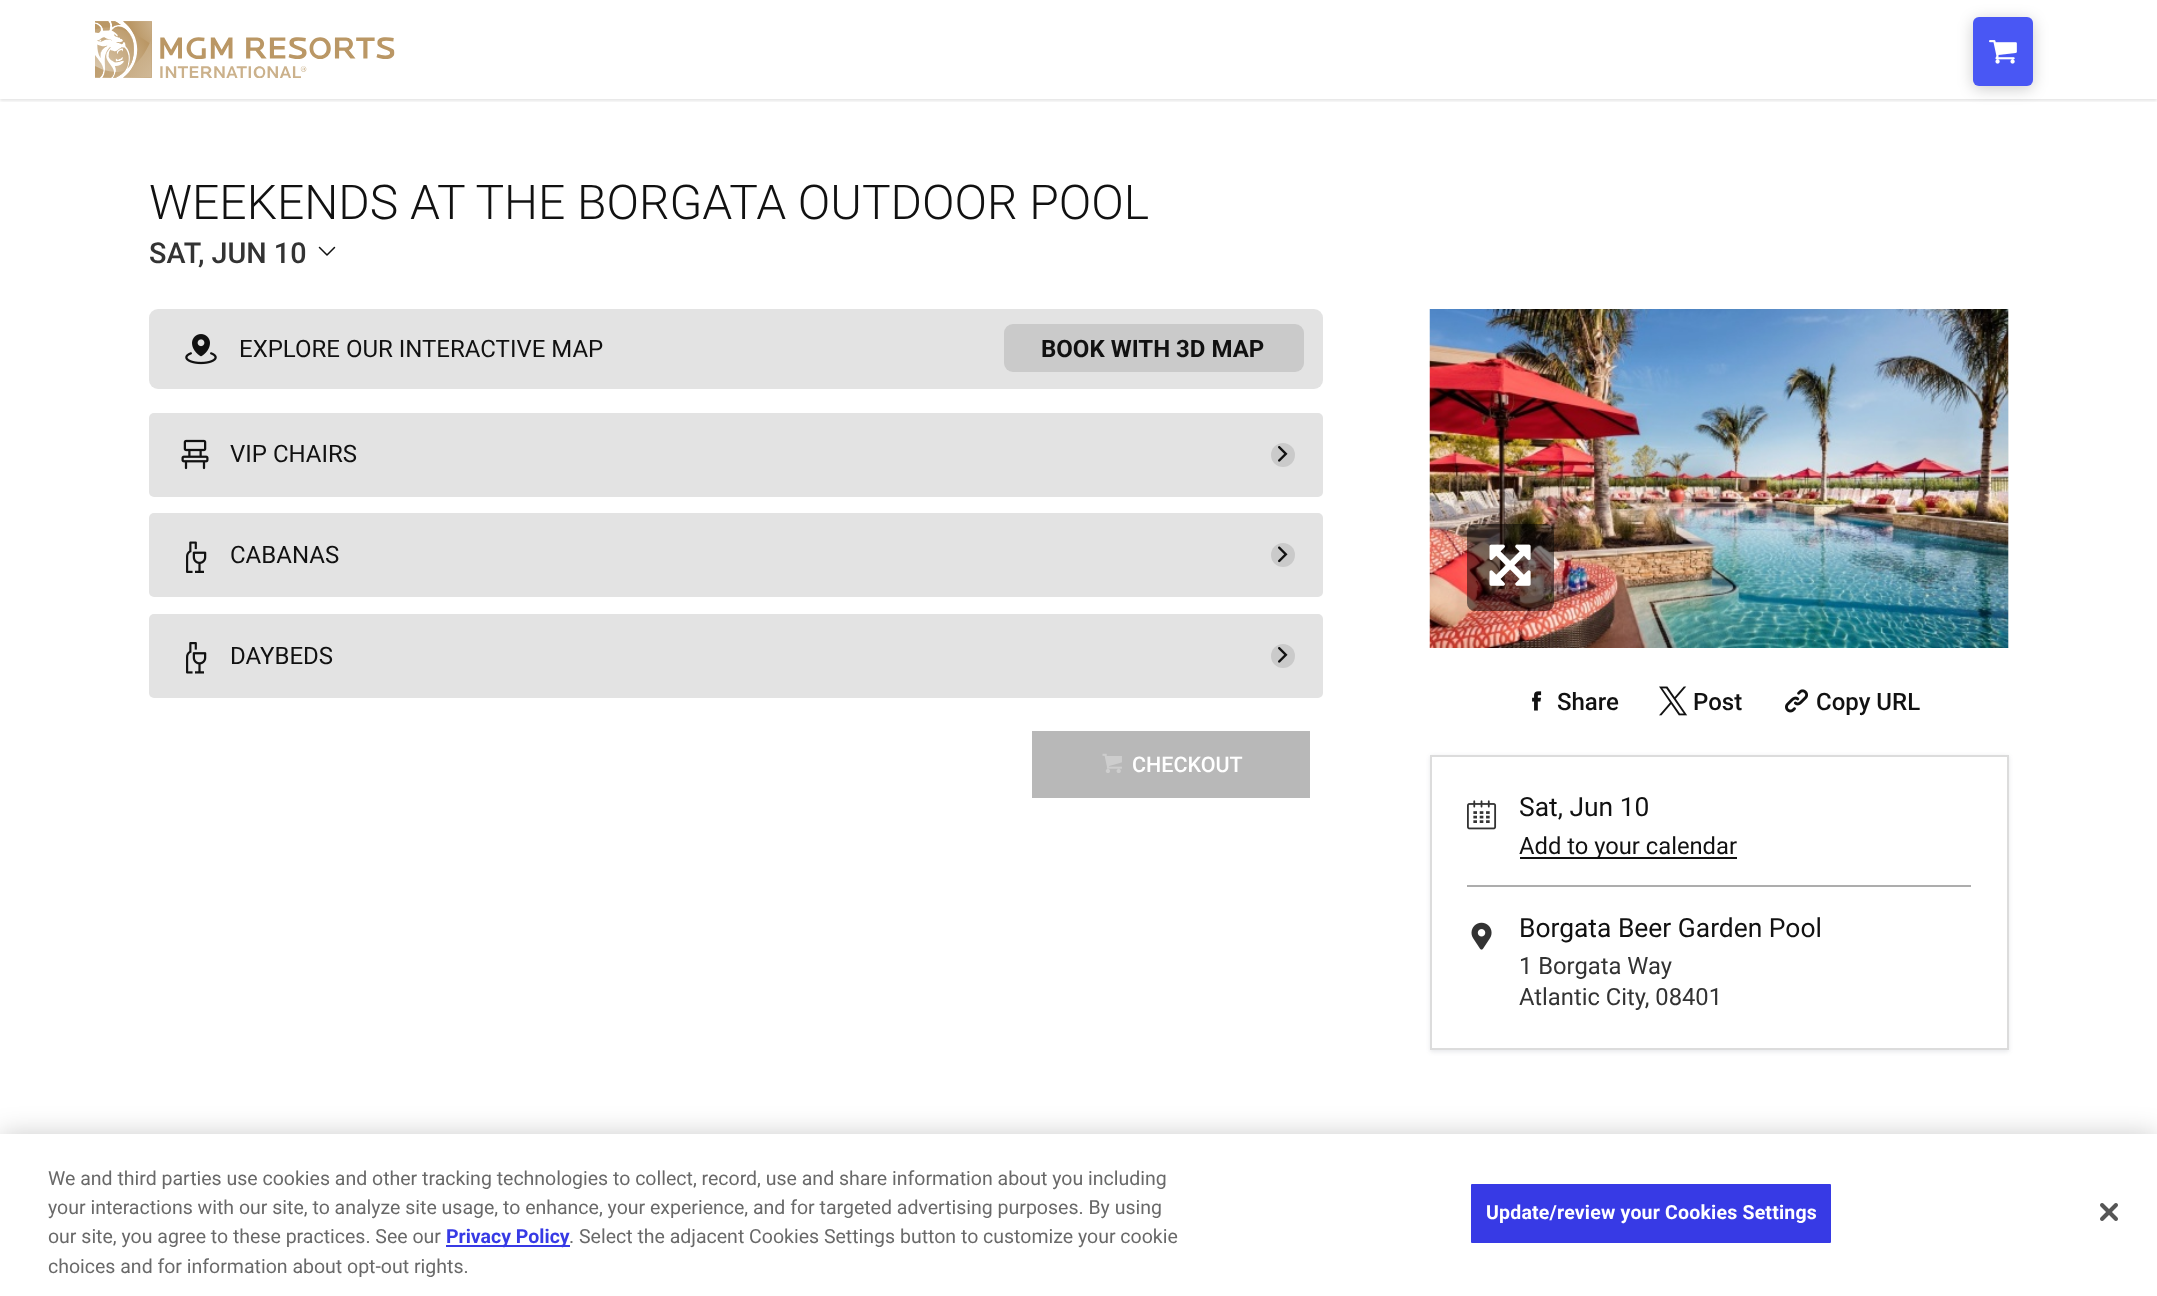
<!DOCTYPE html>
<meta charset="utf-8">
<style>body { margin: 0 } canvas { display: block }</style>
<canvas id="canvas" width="2157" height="1296"></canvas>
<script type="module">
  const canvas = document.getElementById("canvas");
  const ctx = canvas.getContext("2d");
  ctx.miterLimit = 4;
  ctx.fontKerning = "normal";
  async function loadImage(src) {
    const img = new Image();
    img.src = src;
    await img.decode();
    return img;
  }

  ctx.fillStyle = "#ffffff";
  ctx.fillRect(0, 0, 2157, 1296);
  ctx.save();
  ctx.beginPath();
  ctx.rect(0, 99, 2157, 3);
  ctx.clip();
  ctx.fillStyle = "rgba(0, 0, 0, 0.1)";
  ctx.filter = "blur(1.5px)";
  ctx.beginPath();
  ctx.rect(0, 2, 2157, 99);
  ctx.fill();
  ctx.filter = "none";
  ctx.restore();
  ctx.drawImage(await loadImage("img1.png"), 95, 21, 300, 57);
  ctx.fillStyle = "rgba(0, 0, 0, 0.2)";
  ctx.filter = "blur(7.5px)";
  ctx.beginPath();
  ctx.roundRect(1973, 20, 60, 69, 6);
  ctx.fill();
  ctx.filter = "none";
  ctx.fillStyle = "#4957f4";
  ctx.beginPath();
  ctx.roundRect(1973, 17, 60, 69, 6);
  ctx.fill();
  ctx.drawImage(await loadImage("img2.png"), 1989, 40, 28, 24);
  ctx.font = "300 48px Roboto";
  ctx.fillStyle = "#111111";
  ctx.fillText("WEEKENDS AT THE BORGATA OUTDOOR POOL", 149, 219);
  ctx.font = "500 28.75px Roboto";
  ctx.fillStyle = "#333333";
  ctx.fillText("SAT, JUN 10", 149, 263);
  ctx.drawImage(await loadImage("img3.png"), 318, 246, 18, 10);
  ctx.fillStyle = "#e3e3e3";
  ctx.beginPath();
  ctx.roundRect(149, 309, 1174, 80, 9);
  ctx.fill();
  ctx.drawImage(await loadImage("img4.png"), 185, 334, 32, 31);
  ctx.font = "24px Roboto";
  ctx.fillStyle = "#111111";
  ctx.fillText("EXPLORE OUR INTERACTIVE MAP", 239, 357);
  ctx.fillStyle = "#cacaca";
  ctx.beginPath();
  ctx.roundRect(1004, 324, 300, 48, 9);
  ctx.fill();
  ctx.font = "bold 24px Roboto";
  ctx.fillStyle = "#111111";
  ctx.fillText("BOOK WITH 3D MAP", 1041, 357);
  ctx.fillStyle = "#e3e3e3";
  ctx.beginPath();
  ctx.roundRect(149, 413, 1174, 84, 5);
  ctx.fill();
  ctx.drawImage(await loadImage("img5.png"), 181, 439, 28, 31);
  ctx.font = "24px Roboto";
  ctx.fillStyle = "#111111";
  ctx.fillText("VIP CHAIRS", 230, 462);
  ctx.fillStyle = "#cacaca";
  ctx.beginPath();
  ctx.arc(1283, 455, 12, 0, Math.PI * 2);
  ctx.fill();
  ctx.drawImage(await loadImage("img6.png"), 1278, 446, 10, 16);
  ctx.fillStyle = "#e3e3e3";
  ctx.beginPath();
  ctx.roundRect(149, 513, 1174, 84, 5);
  ctx.fill();
  ctx.drawImage(await loadImage("img7.png"), 186, 541, 21, 32);
  ctx.fillStyle = "#111111";
  ctx.fillText("CABANAS", 230, 563);
  ctx.fillStyle = "#cacaca";
  ctx.beginPath();
  ctx.arc(1283, 555, 12, 0, Math.PI * 2);
  ctx.fill();
  ctx.drawImage(await loadImage("img8.png"), 1278, 546, 10, 17);
  ctx.fillStyle = "#e3e3e3";
  ctx.beginPath();
  ctx.roundRect(149, 614, 1174, 84, 5);
  ctx.fill();
  ctx.drawImage(await loadImage("img9.png"), 186, 642, 21, 32);
  ctx.fillStyle = "#111111";
  ctx.fillText("DAYBEDS", 230, 664);
  ctx.fillStyle = "#cacaca";
  ctx.beginPath();
  ctx.arc(1283, 656, 12, 0, Math.PI * 2);
  ctx.fill();
  ctx.drawImage(await loadImage("img6.png"), 1278, 647, 10, 16);
  ctx.fillStyle = "#b8b8b8";
  ctx.fillRect(1032, 731, 278, 67);
  ctx.drawImage(await loadImage("img10.png"), 1102, 753, 20, 20);
  ctx.font = "500 21.5px Roboto";
  ctx.fillStyle = "#ffffff";
  ctx.fillText("CHECKOUT", 1132, 772);
  ctx.fillStyle = "#f3f3f3";
  ctx.fillRect(2008, 309, 1, 339);
  ctx.drawImage(await loadImage("img11.png"), 1429, 309, 580, 339);
  ctx.fillStyle = "rgba(0, 0, 0, 0.5)";
  ctx.beginPath();
  ctx.roundRect(1467, 524, 87, 87, 8);
  ctx.fill();
  ctx.drawImage(await loadImage("img12.png"), 1489, 544, 42, 42);
  ctx.drawImage(await loadImage("img13.png"), 1532, 691, 10, 20);
  ctx.font = "500 24px Roboto";
  ctx.fillStyle = "#111111";
  ctx.fillText("Share", 1557, 710);
  ctx.drawImage(await loadImage("img14.png"), 1659, 686, 29, 30);
  ctx.fillText("Post", 1693, 710);
  ctx.drawImage(await loadImage("img15.png"), 1785, 689, 23, 24);
  ctx.fillText("Copy URL", 1816, 710);
  ctx.fillStyle = "rgba(63, 76, 96, 0.12)";
  ctx.filter = "blur(2px)";
  ctx.beginPath();
  ctx.rect(1430, 756, 579, 296);
  ctx.fill();
  ctx.filter = "none";
  ctx.fillStyle = "#ffffff";
  ctx.beginPath();
  ctx.rect(1431, 756, 577, 293);
  ctx.fill();
  ctx.strokeStyle = "#dcdcdc";
  ctx.lineWidth = 2;
  ctx.stroke();
  ctx.drawImage(await loadImage("img16.png"), 1467, 800, 30, 30);
  ctx.font = "26.4px Roboto";
  ctx.fillStyle = "#111111";
  ctx.fillText("Sat, Jun 10", 1519, 816);
  ctx.fillRect(1520, 857, 217, 2);
  ctx.font = "23.75px Roboto";
  ctx.fillText("Add to your calendar", 1519, 854);
  ctx.fillStyle = "#adadad";
  ctx.fillRect(1467, 885, 504, 2);
  ctx.drawImage(await loadImage("img17.png"), 1471, 922, 21, 28);
  ctx.font = "26.4px Roboto";
  ctx.fillStyle = "#111111";
  ctx.fillText("Borgata Beer Garden Pool", 1519, 937);
  ctx.font = "23.75px Roboto";
  ctx.fillStyle = "#333333";
  ctx.fillText("1 Borgata Way", 1519, 974);
  ctx.fillText("Atlantic City, 08401", 1519, 1005);
  ctx.fillStyle = "rgba(0, 0, 0, 0.2)";
  ctx.filter = "blur(13.5px)";
  ctx.beginPath();
  ctx.rect(0, 1134, 2157, 162);
  ctx.fill();
  ctx.filter = "none";
  ctx.fillStyle = "#ffffff";
  ctx.fillRect(0, 1134, 2157, 162);
  ctx.font = "19.5px Roboto";
  ctx.fillStyle = "#696969";
  ctx.fillText("We and third parties use cookies and other tracking technologies to collect, record, use and share information about you including", 48, 1185);
  ctx.fillText("your interactions with our site, to analyze site usage, to enhance, your experience, and for targeted advertising purposes. By using", 48, 1214);
  ctx.fillText("our site, you agree to these practices. See our", 48, 1243);
  ctx.fillStyle = "#373ae5";
  ctx.fillRect(446, 1245, 124, 2);
  ctx.font = "bold 19.5px Roboto";
  ctx.fillText("Privacy Policy", 446, 1243);
  ctx.font = "19.5px Roboto";
  ctx.fillStyle = "#696969";
  ctx.fillText(". Select the adjacent Cookies Settings button to customize your cookie", 569, 1243);
  ctx.fillText("choices and for information about opt-out rights.", 48, 1273);
  ctx.fillStyle = "#373ae5";
  ctx.beginPath();
  ctx.roundRect(1470, 1183, 362, 61, 2);
  ctx.fill();
  ctx.strokeStyle = "#ffffff";
  ctx.stroke();
  ctx.letterSpacing = "0.2px";
  ctx.font = "bold 19.5px Roboto";
  ctx.fillStyle = "#ffffff";
  ctx.fillText("Update/review your Cookies Settings", 1486, 1219);
  ctx.drawImage(await loadImage("img18.png"), 2100, 1203, 18, 18);
</script>
